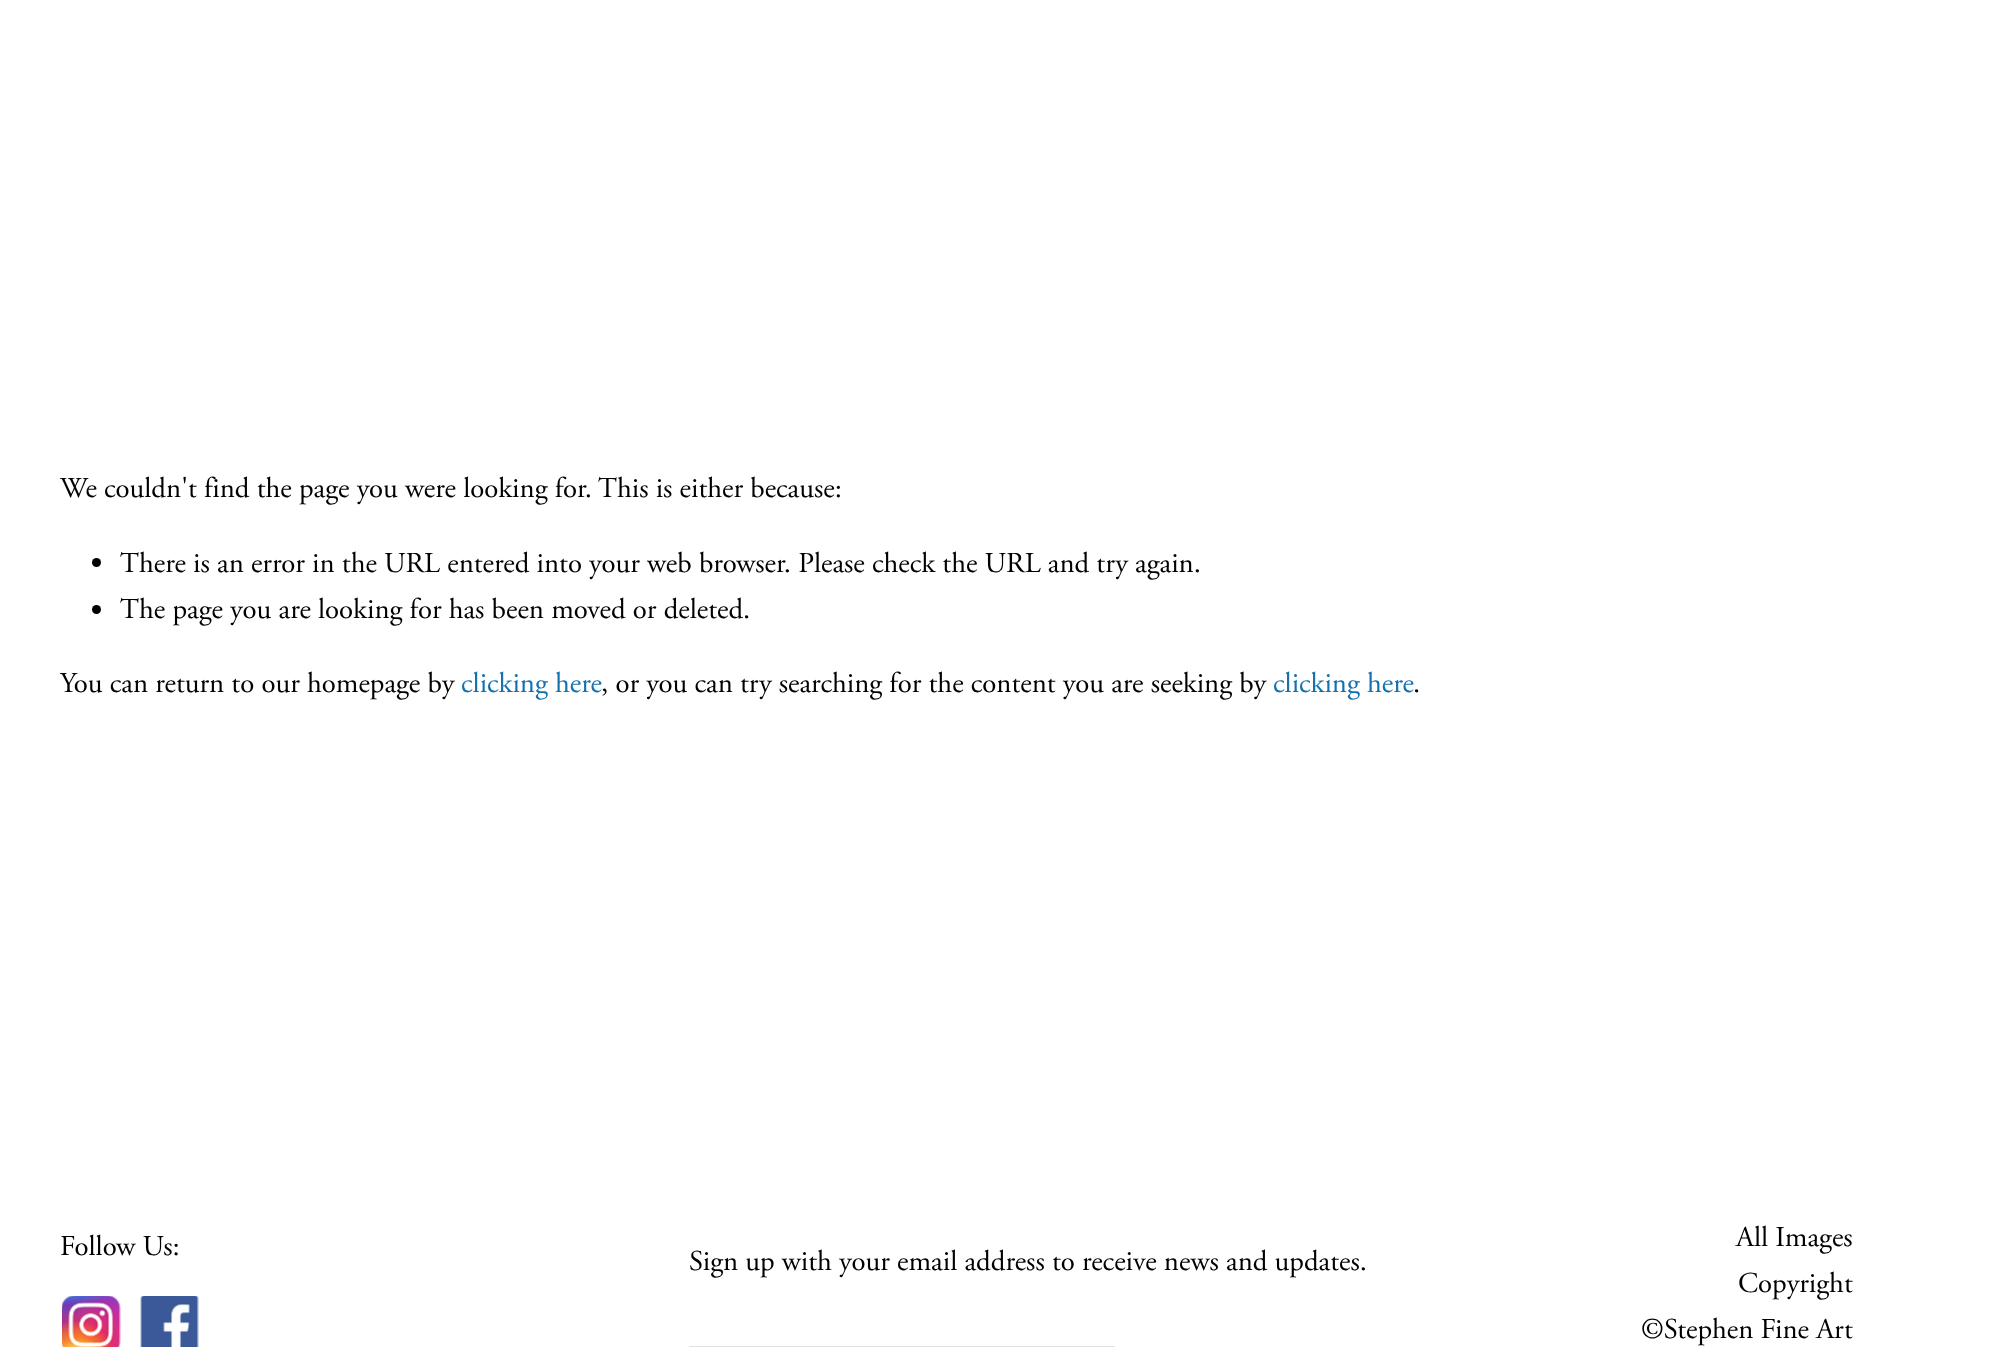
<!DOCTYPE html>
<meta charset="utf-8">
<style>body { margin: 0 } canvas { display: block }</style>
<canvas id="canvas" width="1990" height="1347"></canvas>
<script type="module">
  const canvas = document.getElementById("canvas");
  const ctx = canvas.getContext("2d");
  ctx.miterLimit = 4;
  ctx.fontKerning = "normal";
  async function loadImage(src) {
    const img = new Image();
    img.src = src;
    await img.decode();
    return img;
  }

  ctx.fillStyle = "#ffffff";
  ctx.fillRect(0, 0, 1990, 1347);
  ctx.font = "28.8px Adobe Garamond";
  ctx.fillStyle = "#000000";
  ctx.fillText("We couldn't find the page you were looking for. This is either because:", 60, 497);
  ctx.beginPath();
  ctx.arc(96.5, 562.5, 4.5, 0, Math.PI * 2);
  ctx.fill();
  ctx.fillText("There is an error in the URL entered into your web browser. Please check the URL and try again.", 120, 572);
  ctx.beginPath();
  ctx.arc(96.5, 609.5, 4.5, 0, Math.PI * 2);
  ctx.fill();
  ctx.fillText("The page you are looking for has been moved or deleted.", 120, 618);
  ctx.fillText("You can return to our homepage by", 60, 692);
  ctx.fillStyle = "#1470af";
  ctx.fillText("clicking here", 461, 692);
  ctx.fillStyle = "#000000";
  ctx.fillText(", or you can try searching for the content you are seeking by", 601, 692);
  ctx.fillStyle = "#1470af";
  ctx.fillText("clicking here", 1273, 692);
  ctx.fillStyle = "#000000";
  ctx.fillText(".", 1413, 692);
  ctx.fillText("Follow Us:", 60, 1255);
  ctx.fillText("All Images", 1736, 1246);
  ctx.fillText("Copyright", 1738, 1292);
  ctx.fillText("©Stephen Fine Art", 1641, 1338);
  ctx.fillText("Sign up with your email address to receive news and updates.", 689, 1270);
  ctx.strokeStyle = "#e0e0e0";
  ctx.lineWidth = 2;
  ctx.strokeRect(690, 1347, 424, 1);
  ctx.drawImage(await loadImage("img1.png"), 62, 1296, 59, 51);
  ctx.drawImage(await loadImage("img2.png"), 140, 1296, 59, 51);
</script>
